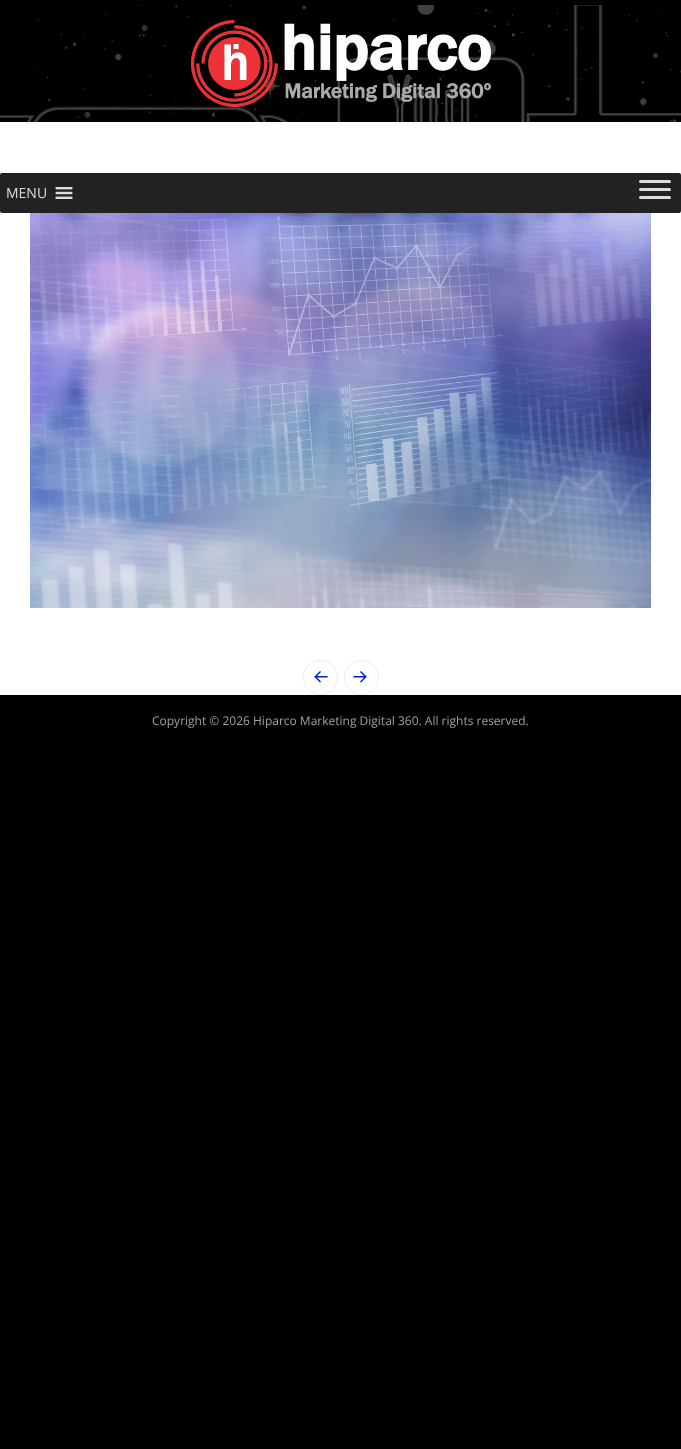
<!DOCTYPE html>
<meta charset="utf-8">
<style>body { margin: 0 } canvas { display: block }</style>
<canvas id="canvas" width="681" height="1449"></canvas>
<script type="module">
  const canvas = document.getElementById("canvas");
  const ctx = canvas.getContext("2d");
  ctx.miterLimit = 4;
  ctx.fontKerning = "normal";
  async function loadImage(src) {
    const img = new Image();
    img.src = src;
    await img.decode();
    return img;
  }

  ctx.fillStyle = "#000000";
  ctx.fillRect(0, 0, 681, 1449);
  ctx.fillStyle = "#ffffff";
  ctx.fillRect(0, 122, 681, 573);
  ctx.drawImage(await loadImage("img1.png"), 0, 5, 681, 117);
  ctx.drawImage(await loadImage("img2.png"), 191, 20, 300, 87);
  ctx.fillStyle = "#222222";
  ctx.beginPath();
  ctx.roundRect(0, 173, 681, 40, 2);
  ctx.fill();
  ctx.font = "14px Open Sans";
  ctx.fillStyle = "#dddddd";
  ctx.fillText("MENU", 6, 198);
  ctx.drawImage(await loadImage("img3.png"), 55, 187, 18, 12);
  ctx.beginPath();
  ctx.roundRect(639, 180, 32, 3, 1.5);
  ctx.fill();
  ctx.beginPath();
  ctx.roundRect(639, 188, 32, 3, 1.5);
  ctx.fill();
  ctx.beginPath();
  ctx.roundRect(639, 196, 32, 3, 1.5);
  ctx.fill();
  ctx.drawImage(await loadImage("img4.png"), 30, 213, 621, 395);
  ctx.beginPath();
  ctx.arc(320.5, 677.5, 17, 0, Math.PI * 2);
  ctx.strokeStyle = "#ededed";
  ctx.stroke();
  ctx.drawImage(await loadImage("img5.png"), 314, 671, 14, 12);
  ctx.beginPath();
  ctx.arc(361.5, 677.5, 17, 0, Math.PI * 2);
  ctx.stroke();
  ctx.drawImage(await loadImage("img6.png"), 353, 671, 14, 12);
  ctx.font = "12px Open Sans";
  ctx.fillStyle = "#a0a0a0";
  ctx.fillText("Copyright © 2026 Hiparco Marketing Digital 360. All rights reserved.", 152, 725);
</script>
